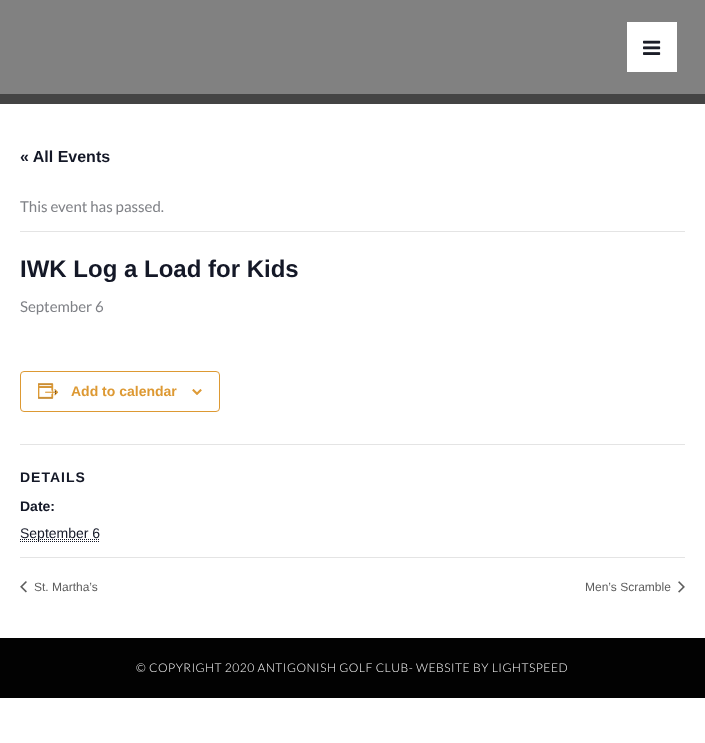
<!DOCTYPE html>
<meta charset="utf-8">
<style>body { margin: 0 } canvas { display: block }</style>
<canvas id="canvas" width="705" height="743"></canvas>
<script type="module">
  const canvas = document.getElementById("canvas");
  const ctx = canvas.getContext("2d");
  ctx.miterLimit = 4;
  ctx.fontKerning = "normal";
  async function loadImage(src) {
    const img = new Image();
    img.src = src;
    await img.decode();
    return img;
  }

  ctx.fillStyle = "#ffffff";
  ctx.fillRect(0, 0, 705, 743);
  ctx.fillStyle = "#444444";
  ctx.fillRect(0, 94, 705, 10);
  ctx.fillStyle = "#818181";
  ctx.fillRect(0, 0, 705, 94);
  ctx.fillStyle = "#ffffff";
  ctx.fillRect(627, 22, 50, 50);
  ctx.drawImage(await loadImage("img1.png"), 643, 40, 18, 15);
  ctx.font = "bold 16px Liberation Sans";
  ctx.fillStyle = "#141827";
  ctx.fillText("« All Events", 20, 162);
  ctx.fillStyle = "#e4e4e4";
  ctx.fillRect(20, 231, 665, 1);
  ctx.font = "15px Lato";
  ctx.fillStyle = "#7f8186";
  ctx.fillText("This event has passed.", 20, 212);
  ctx.font = "bold 24px Liberation Sans";
  ctx.fillStyle = "#141827";
  ctx.fillText("IWK Log a Load for Kids", 20, 277);
  ctx.font = "15px Lato";
  ctx.fillStyle = "#7f8186";
  ctx.fillText("September 6", 20, 312);
  ctx.beginPath();
  ctx.roundRect(20.5, 371.5, 199, 40, 3.5);
  ctx.strokeStyle = "#dd9933";
  ctx.stroke();
  ctx.drawImage(await loadImage("img2.png"), 38, 383, 21, 16);
  ctx.font = "bold 14px Liberation Sans";
  ctx.fillStyle = "#dd9933";
  ctx.fillText("Add to calendar", 71, 396);
  ctx.drawImage(await loadImage("img3.png"), 192, 389, 10, 6);
  ctx.fillStyle = "#e4e4e4";
  ctx.fillRect(20, 444, 665, 1);
  ctx.letterSpacing = "1px";
  ctx.fillStyle = "#141827";
  ctx.fillText("DETAILS", 20, 482);
  ctx.letterSpacing = "0px";
  ctx.fillText("Date:", 20, 511);
  ctx.beginPath();
  ctx.moveTo(20, 539.5);
  ctx.lineTo(100, 539.5);
  ctx.strokeStyle = "#141827";
  ctx.setLineDash([1, 1]);
  ctx.stroke();
  ctx.font = "14px Liberation Sans";
  ctx.fillText("September 6", 20, 538);
  ctx.beginPath();
  ctx.moveTo(20, 541.5);
  ctx.lineTo(100, 541.5);
  ctx.stroke();
  ctx.fillStyle = "#e4e4e4";
  ctx.fillRect(20, 557, 665, 1);
  ctx.drawImage(await loadImage("img4.png"), 20, 581, 7, 12);
  ctx.font = "12px Liberation Sans";
  ctx.fillStyle = "#5d5d5d";
  ctx.fillText("St. Martha’s", 34, 591);
  ctx.fillText("Men’s Scramble", 585, 591);
  ctx.drawImage(await loadImage("img5.png"), 678, 581, 7, 12);
  ctx.fillStyle = "#020202";
  ctx.fillRect(0, 638, 705, 60);
  ctx.letterSpacing = "0.5px";
  ctx.font = "300 12px Lato";
  ctx.fillStyle = "#ffffff";
  ctx.fillText("© COPYRIGHT 2020 ANTIGONISH GOLF CLUB- WEBSITE BY LIGHTSPEED", 136, 672);
</script>
